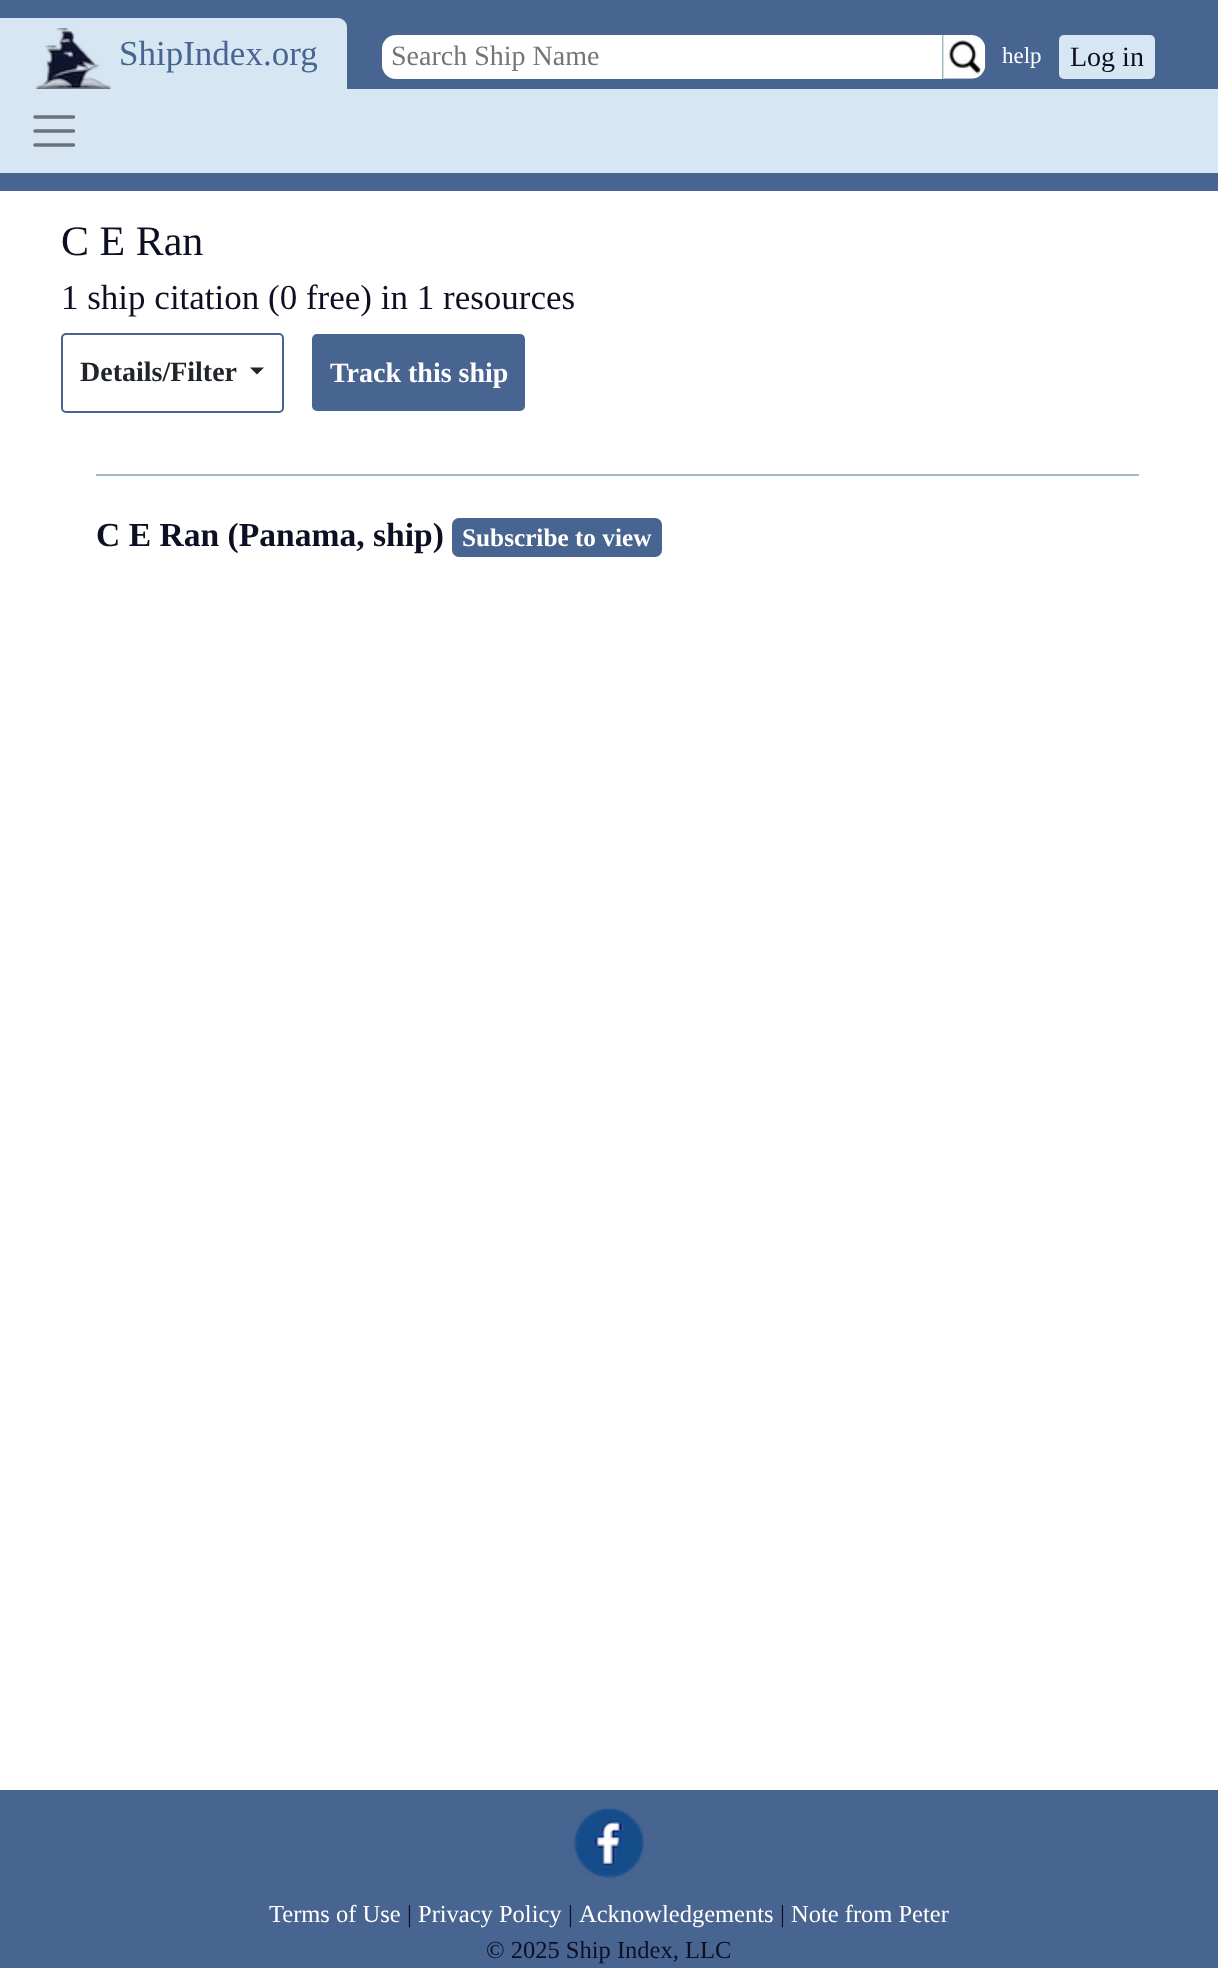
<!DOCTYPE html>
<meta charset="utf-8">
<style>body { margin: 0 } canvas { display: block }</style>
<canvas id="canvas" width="1218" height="1968"></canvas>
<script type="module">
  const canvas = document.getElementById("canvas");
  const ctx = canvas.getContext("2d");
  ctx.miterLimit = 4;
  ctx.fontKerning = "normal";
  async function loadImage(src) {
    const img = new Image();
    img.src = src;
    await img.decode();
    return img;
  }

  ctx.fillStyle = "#ffffff";
  ctx.fillRect(0, 0, 1218, 1968);
  ctx.fillStyle = "#486491";
  ctx.fillRect(0, 0, 1218, 191);
  ctx.fillStyle = "#d6e6f3";
  ctx.beginPath();
  ctx.roundRect(0, 18, 347, 71, [0, 9, 0, 0]);
  ctx.fill();
  ctx.drawImage(await loadImage("img1.png"), 35, 28, 77, 61);
  ctx.font = "35px Liberation Serif";
  ctx.fillStyle = "#486491";
  ctx.fillText("ShipIndex.org", 119, 65);
  ctx.fillStyle = "#ffffff";
  ctx.beginPath();
  ctx.roundRect(382, 35, 560, 44, [14, 0, 0, 14]);
  ctx.fill();
  ctx.font = "28px Liberation Serif";
  ctx.fillStyle = "#757575";
  ctx.fillText("Search Ship Name", 391, 65);
  ctx.fillStyle = "#a1b9c0";
  ctx.fillRect(942, 35, 2, 44);
  ctx.drawImage(await loadImage("img2.png"), 943, 35, 43, 44);
  ctx.font = "23px Liberation Serif";
  ctx.fillStyle = "#ffffff";
  ctx.fillText("help", 1002, 63);
  ctx.fillStyle = "#d6e6f3";
  ctx.beginPath();
  ctx.roundRect(1059, 35, 96, 44, 5);
  ctx.fill();
  ctx.font = "28px Liberation Serif";
  ctx.fillStyle = "#0d0f23";
  ctx.fillText("Log in", 1070, 66);
  ctx.fillStyle = "#d6e6f3";
  ctx.fillRect(0, 89, 1218, 84);
  ctx.beginPath();
  ctx.moveTo(35, 117);
  ctx.lineTo(73.5, 117);
  ctx.moveTo(35, 131);
  ctx.lineTo(73.5, 131);
  ctx.moveTo(35, 145);
  ctx.lineTo(73.5, 145);
  ctx.strokeStyle = "#6b737a";
  ctx.lineWidth = 3.5;
  ctx.lineCap = "round";
  ctx.stroke();
  ctx.font = "42px Liberation Serif";
  ctx.fillStyle = "#0d0f23";
  ctx.fillText("C E Ran", 61, 255);
  ctx.font = "35px Liberation Serif";
  ctx.fillText("1 ship citation (0 free) in 1 resources", 61, 309);
  ctx.beginPath();
  ctx.roundRect(62, 334, 221, 78, 4);
  ctx.strokeStyle = "#486491";
  ctx.lineWidth = 2;
  ctx.stroke();
  ctx.font = "bold 28px Liberation Serif";
  ctx.fillStyle = "#212529";
  ctx.fillText("Details/Filter", 80, 381);
  ctx.beginPath();
  ctx.moveTo(250, 367.5);
  ctx.lineTo(264, 367.5);
  ctx.lineTo(257, 374.5);
  ctx.closePath();
  ctx.fill();
  ctx.fillStyle = "#486491";
  ctx.beginPath();
  ctx.roundRect(312, 334, 213, 77, 5);
  ctx.fill();
  ctx.fillStyle = "#ffffff";
  ctx.fillText("Track this ship", 330, 382);
  ctx.fillStyle = "#a1b9c0";
  ctx.fillRect(96, 474, 1043, 2);
  ctx.font = "bold 33.6px Liberation Serif";
  ctx.fillStyle = "#0d0f23";
  ctx.fillText("C E Ran (Panama, ship)", 96, 546);
  ctx.fillStyle = "#486491";
  ctx.beginPath();
  ctx.roundRect(452, 518, 210, 39, 7);
  ctx.fill();
  ctx.font = "bold 25.25px Liberation Serif";
  ctx.fillStyle = "#ffffff";
  ctx.fillText("Subscribe to view", 462, 546);
  ctx.fillStyle = "#486491";
  ctx.fillRect(0, 1790, 1218, 178);
  ctx.drawImage(await loadImage("img3.png"), 574, 1807, 70, 71);
  ctx.font = "24.5px Liberation Serif";
  ctx.fillStyle = "#ffffff";
  ctx.fillText("Terms of Use", 269, 1922);
  ctx.fillStyle = "#0d0f23";
  ctx.fillText("|", 407, 1922);
  ctx.fillStyle = "#ffffff";
  ctx.fillText("Privacy Policy", 418, 1922);
  ctx.fillStyle = "#0d0f23";
  ctx.fillText("|", 568, 1922);
  ctx.fillStyle = "#ffffff";
  ctx.fillText("Acknowledgements", 579, 1922);
  ctx.fillStyle = "#0d0f23";
  ctx.fillText("|", 780, 1922);
  ctx.fillStyle = "#ffffff";
  ctx.fillText("Note from Peter", 791, 1922);
  ctx.fillStyle = "#0d0f23";
  ctx.fillText("© 2025 Ship Index, LLC", 486, 1958);
</script>
